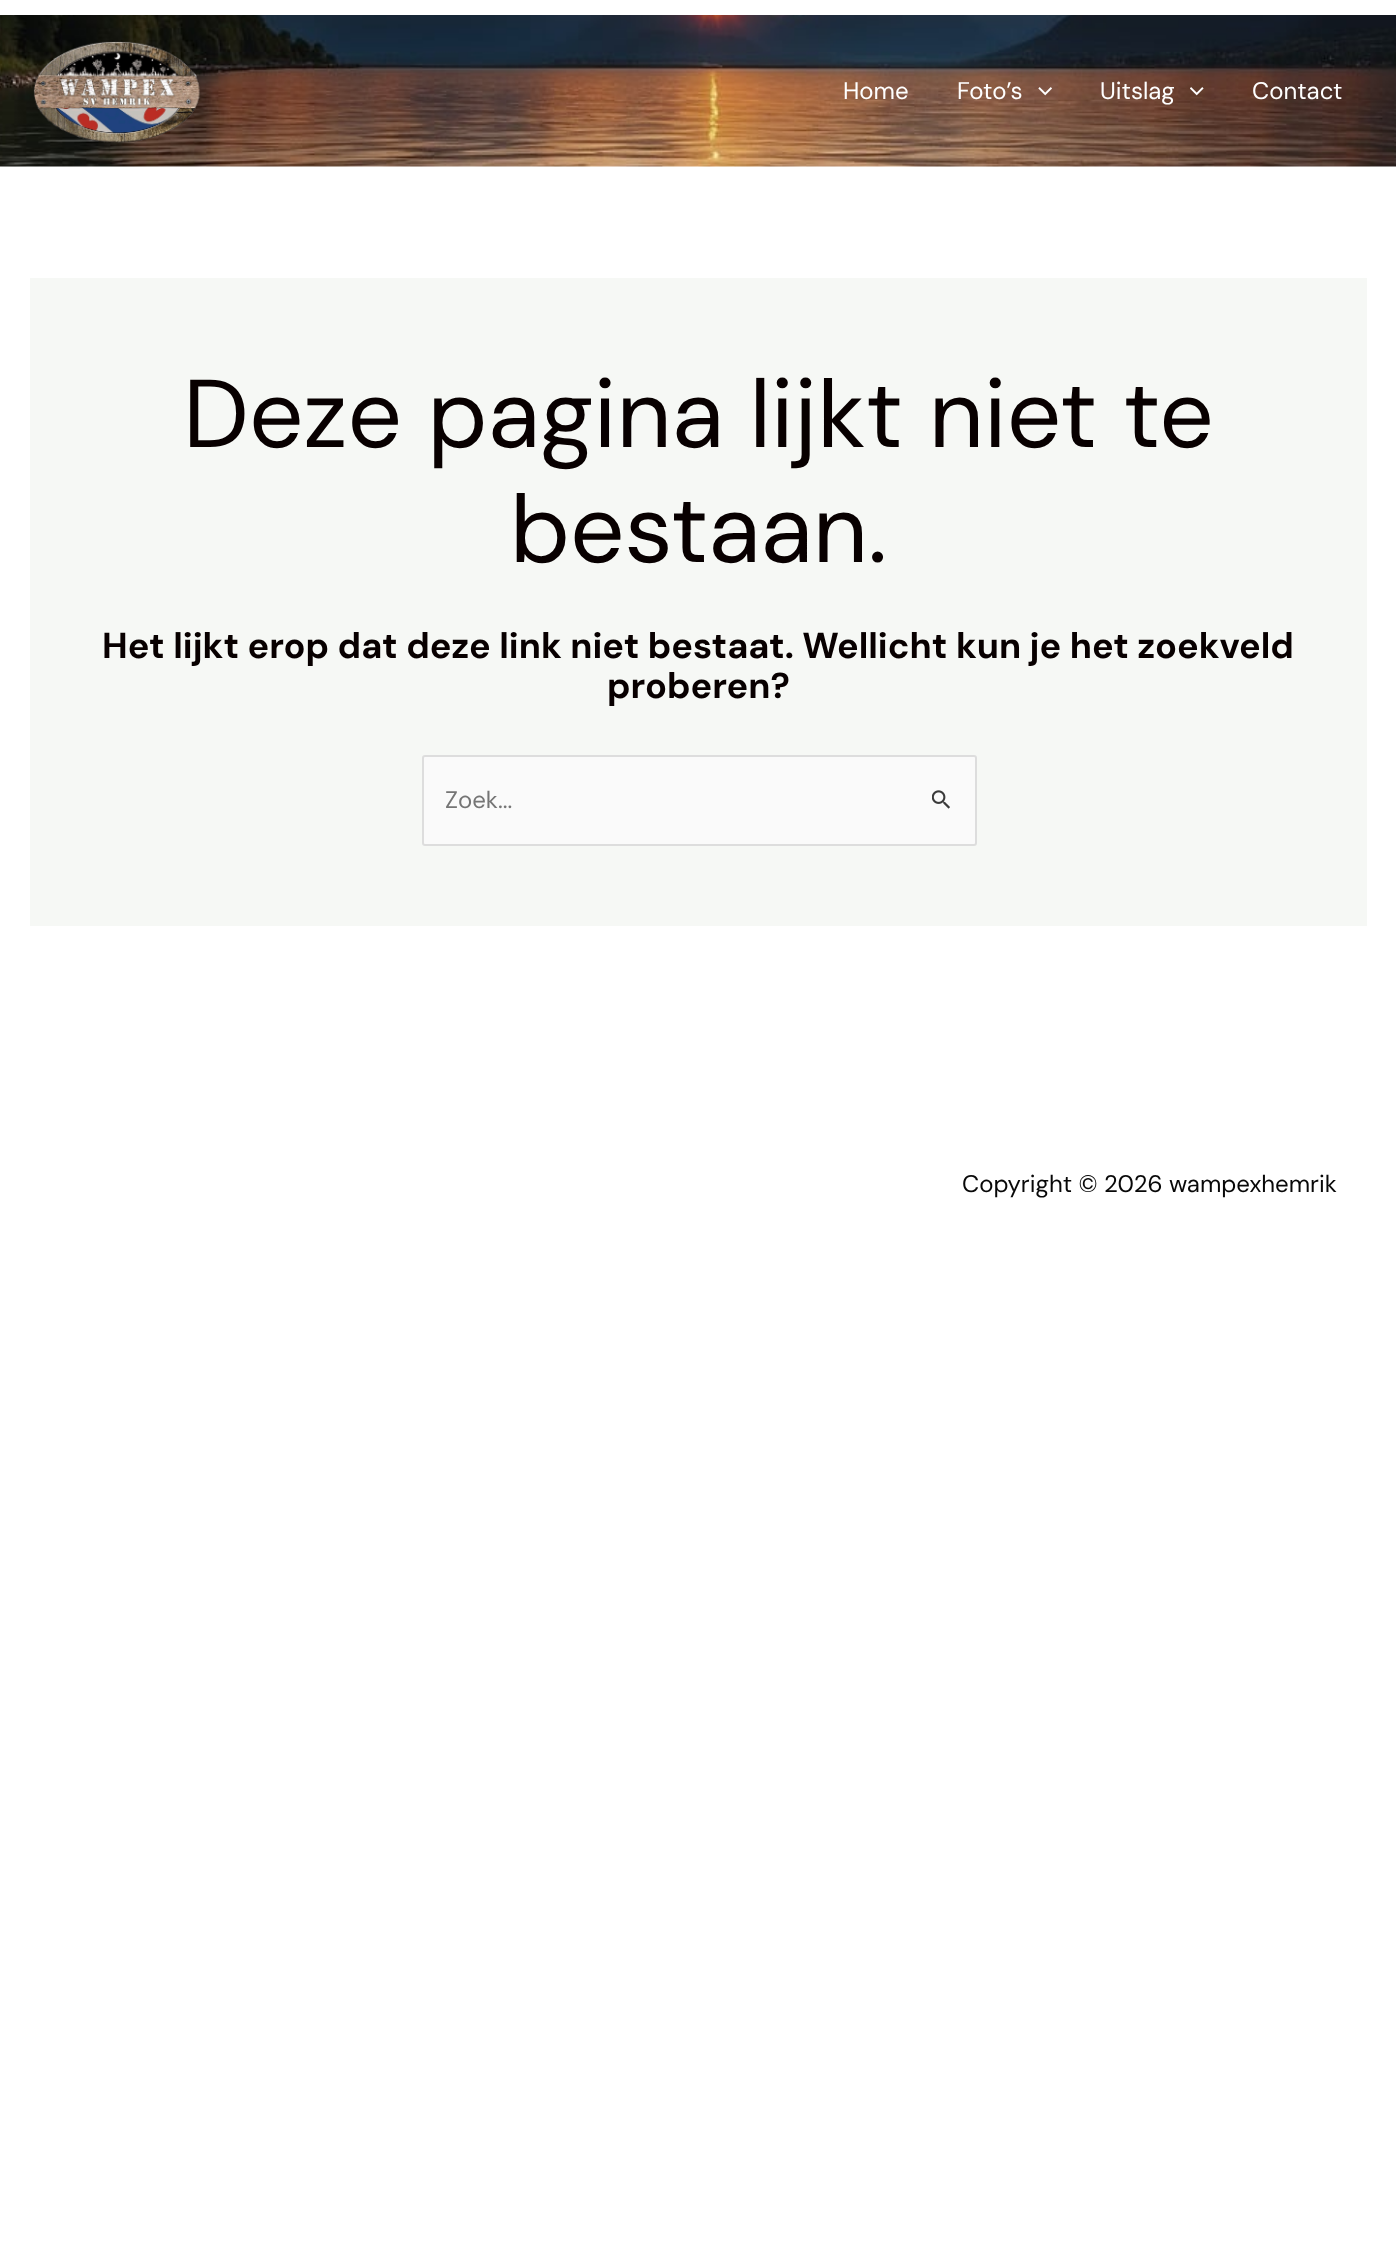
<!DOCTYPE html>
<meta charset="utf-8">
<style>body { margin: 0 } canvas { display: block }</style>
<canvas id="canvas" width="1396" height="2252"></canvas>
<script type="module">
  const canvas = document.getElementById("canvas");
  const ctx = canvas.getContext("2d");
  ctx.miterLimit = 4;
  ctx.fontKerning = "normal";
  async function loadImage(src) {
    const img = new Image();
    img.src = src;
    await img.decode();
    return img;
  }

  ctx.fillStyle = "#ffffff";
  ctx.fillRect(0, 0, 1396, 2252);
  ctx.drawImage(await loadImage("img1.png"), 0, 15, 1396, 152);
  ctx.drawImage(await loadImage("img2.png"), 33, 41, 167, 102);
  ctx.font = "24px DM Sans";
  ctx.fillText("Home", 843, 99);
  ctx.fillText("Foto’s", 957, 99);
  ctx.drawImage(await loadImage("img3.png"), 1038, 87, 14, 9);
  ctx.fillText("Uitslag", 1100, 99);
  ctx.drawImage(await loadImage("img4.png"), 1190, 87, 14, 9);
  ctx.fillText("Contact", 1252, 99);
  ctx.fillStyle = "#f6f8f5";
  ctx.fillRect(30, 278, 1337, 648);
  ctx.font = "96px DM Sans";
  ctx.fillStyle = "#080000";
  ctx.fillText("Deze pagina lijkt niet te", 183, 447);
  ctx.fillText("bestaan.", 510, 562);
  ctx.font = "bold 36px DM Sans";
  ctx.fillText("Het lijkt erop dat deze link niet bestaat. Wellicht kun je het zoekveld", 102, 658);
  ctx.fillText("proberen?", 607, 698);
  ctx.fillStyle = "#fafafa";
  ctx.beginPath();
  ctx.roundRect(423, 756, 553, 89, 2);
  ctx.fill();
  ctx.strokeStyle = "#dddddd";
  ctx.lineWidth = 2;
  ctx.stroke();
  ctx.font = "24px DM Sans";
  ctx.fillStyle = "#757575";
  ctx.fillText("Zoek...", 445, 808);
  ctx.drawImage(await loadImage("img5.png"), 932, 790, 18, 19);
  ctx.fillStyle = "#080808";
  ctx.fillText("Copyright © 2026 wampexhemrik", 962, 1192);
</script>
